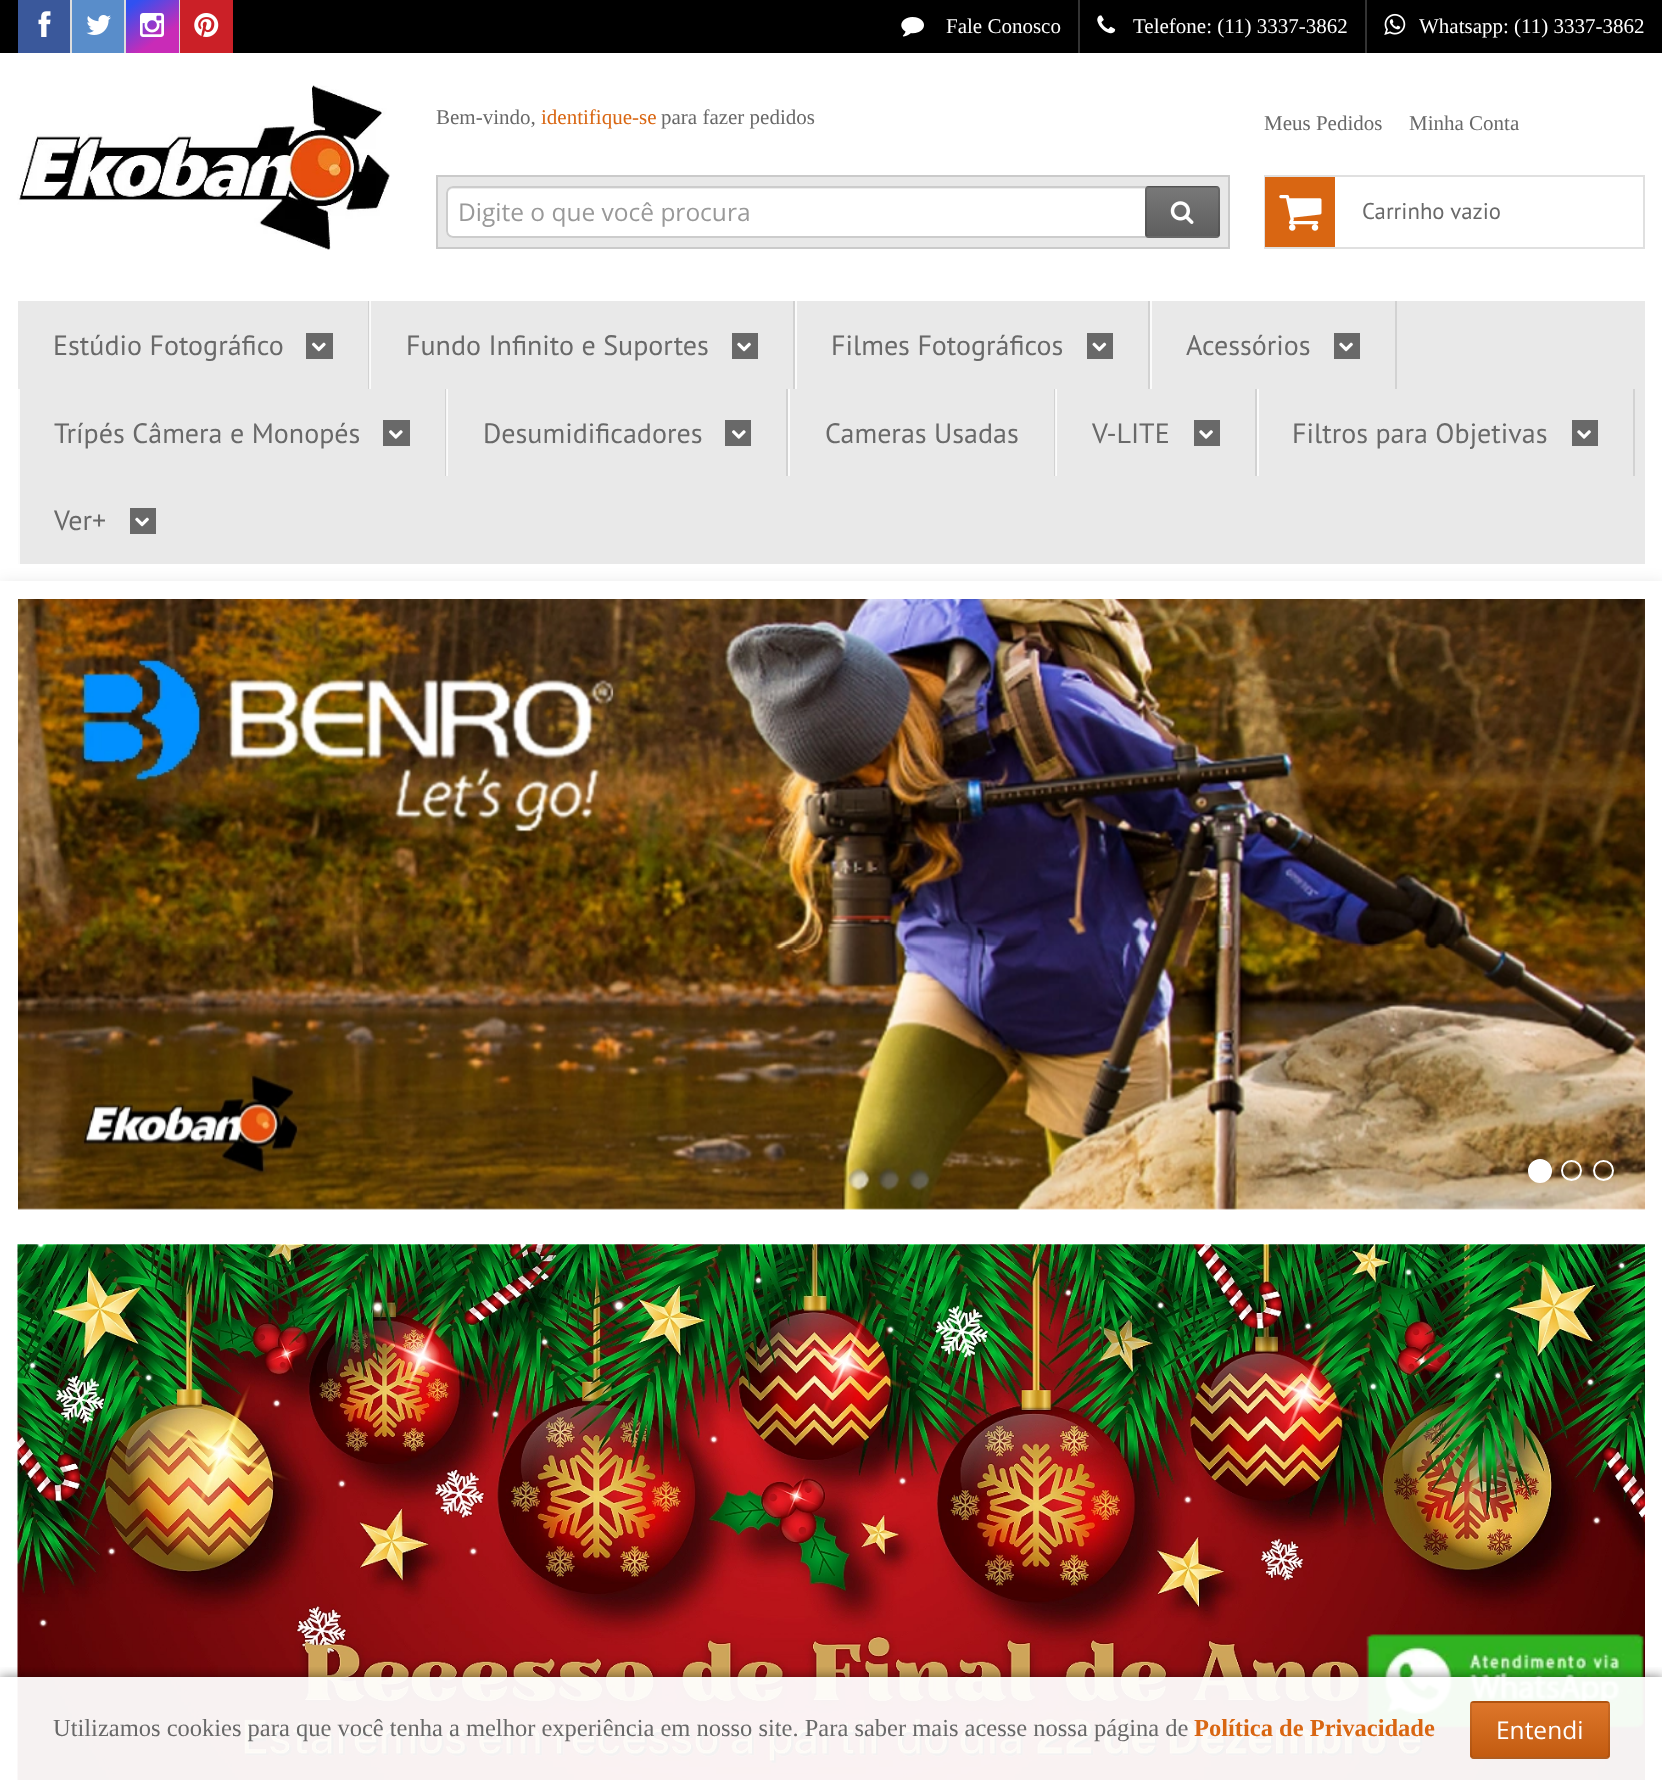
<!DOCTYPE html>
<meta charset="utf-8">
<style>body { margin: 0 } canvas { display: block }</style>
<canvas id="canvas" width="1662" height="1780"></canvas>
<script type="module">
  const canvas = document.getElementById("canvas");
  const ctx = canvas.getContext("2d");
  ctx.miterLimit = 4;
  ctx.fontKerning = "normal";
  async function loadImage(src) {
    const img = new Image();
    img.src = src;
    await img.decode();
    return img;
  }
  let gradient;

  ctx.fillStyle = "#000000";
  ctx.fillRect(0, 0, 1662, 1780);
  ctx.fillStyle = "#3a589b";
  ctx.fillRect(18, 0, 52, 53);
  ctx.drawImage(await loadImage("img1.png"), 38, 11, 13, 26);
  ctx.fillStyle = "#dddddd";
  ctx.fillRect(70, 0, 2, 53);
  ctx.fillStyle = "#598dca";
  ctx.fillRect(72, 0, 52, 53);
  ctx.drawImage(await loadImage("img2.png"), 86, 15, 25, 20);
  ctx.fillStyle = "#dddddd";
  ctx.fillRect(124, 0, 2, 53);
  gradient = ctx.createLinearGradient(131, -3.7, 173, 56);
  gradient.addColorStop(0.1, "#3051f1");
  gradient.addColorStop(0.7, "#c92bb7");
  ctx.fillStyle = gradient;
  ctx.fillRect(126, 0, 53, 53);
  ctx.drawImage(await loadImage("img3.png"), 140, 13, 24, 24);
  ctx.fillStyle = "#dddddd";
  ctx.fillRect(179, 0, 1, 53);
  ctx.fillStyle = "#cb2027";
  ctx.fillRect(180, 0, 53, 53);
  ctx.drawImage(await loadImage("img4.png"), 194, 13, 25, 24);
  ctx.drawImage(await loadImage("img5.png"), 901, 17, 23, 20);
  ctx.font = "21px Liberation Serif";
  ctx.fillStyle = "#ffffff";
  ctx.fillText("Fale Conosco", 946, 33);
  ctx.fillStyle = "#333333";
  ctx.fillRect(1078, 0, 2, 53);
  ctx.drawImage(await loadImage("img6.png"), 1097, 15, 19, 19);
  ctx.fillStyle = "#ffffff";
  ctx.fillText("Telefone: (11) 3337-3862", 1133, 33);
  ctx.fillStyle = "#333333";
  ctx.fillRect(1365, 0, 2, 53);
  ctx.drawImage(await loadImage("img7.png"), 1384, 13, 22, 22);
  ctx.fillStyle = "#ffffff";
  ctx.fillText("Whatsapp: (11) 3337-3862", 1419, 33);
  ctx.fillRect(0, 53, 1662, 528);
  ctx.drawImage(await loadImage("img8.png"), 17, 85, 373, 165);
  ctx.fillStyle = "#696969";
  ctx.fillText("Bem-vindo,", 436, 124);
  ctx.fillStyle = "#d96612";
  ctx.fillText("identifique-se", 541, 124);
  ctx.fillStyle = "#696969";
  ctx.fillText("para fazer pedidos", 661, 124);
  ctx.fillText("Meus Pedidos", 1264, 130);
  ctx.fillText("Minha Conta", 1409, 130);
  ctx.fillStyle = "#e8e8e8";
  ctx.beginPath();
  ctx.rect(437, 176, 792, 72);
  ctx.fill();
  ctx.strokeStyle = "#cacaca";
  ctx.lineWidth = 2;
  ctx.stroke();
  ctx.fillStyle = "#ffffff";
  ctx.beginPath();
  ctx.roundRect(446, 186, 753, 52, 7);
  ctx.fill();
  ctx.fillStyle = "#ececec";
  ctx.beginPath();
  ctx.moveTo(453, 189);
  ctx.lineTo(1192, 189);
  ctx.bezierCurveTo(1195, 189, 1197, 191, 1197, 194);
  ctx.bezierCurveTo(1197, 191, 1196, 187, 1192, 187);
  ctx.lineTo(453, 187);
  ctx.bezierCurveTo(449, 187, 448, 191, 448, 194);
  ctx.bezierCurveTo(448, 191, 450, 189, 453, 189);
  ctx.closePath();
  ctx.fill();
  ctx.beginPath();
  ctx.roundRect(447, 187, 751, 50, 6);
  ctx.strokeStyle = "#cccccc";
  ctx.stroke();
  ctx.font = "24.5px Open Sans";
  ctx.fillStyle = "#999999";
  ctx.fillText("Digite o que você procura", 458, 221);
  ctx.fillStyle = "#696969";
  ctx.beginPath();
  ctx.roundRect(1145, 186, 75, 52, 4);
  ctx.fill();
  ctx.save();
  ctx.beginPath();
  ctx.roundRect(1145, 186, 75, 52, 4);
  ctx.clip();
  gradient = ctx.createLinearGradient(1182, 138, 1182, 187);
  gradient.addColorStop(0, "rgba(255, 255, 255, 0.1)");
  gradient.addColorStop(1, "rgba(0, 0, 0, 0.1)");
  ctx.fillStyle = gradient;
  ctx.fillRect(1145, 186, 75, 1);
  ctx.restore();
  gradient = ctx.createLinearGradient(1182, 187, 1182, 236);
  gradient.addColorStop(0, "rgba(255, 255, 255, 0.1)");
  gradient.addColorStop(1, "rgba(0, 0, 0, 0.1)");
  ctx.fillStyle = gradient;
  ctx.fillRect(1145, 187, 75, 49);
  ctx.save();
  ctx.beginPath();
  ctx.roundRect(1145, 186, 75, 52, 4);
  ctx.clip();
  gradient = ctx.createLinearGradient(1182, 236, 1182, 285);
  gradient.addColorStop(0, "rgba(255, 255, 255, 0.1)");
  gradient.addColorStop(1, "rgba(0, 0, 0, 0.1)");
  ctx.fillStyle = gradient;
  ctx.fillRect(1145, 236, 75, 2);
  ctx.restore();
  ctx.beginPath();
  ctx.roundRect(1146, 187, 73, 50, 3);
  ctx.strokeStyle = "rgba(0, 0, 0, 0.13)";
  ctx.stroke();
  ctx.drawImage(await loadImage("img9.png"), 1170, 201, 24, 23);
  ctx.strokeStyle = "#e0e0e0";
  ctx.strokeRect(1265, 176, 379, 72);
  ctx.fillStyle = "#d96612";
  ctx.fillRect(1265, 177, 70, 70);
  ctx.drawImage(await loadImage("img10.png"), 1279, 195, 43, 36);
  ctx.font = "22.75px PT Sans";
  ctx.fillStyle = "#696969";
  ctx.fillText("Carrinho vazio", 1362, 219);
  ctx.fillStyle = "#e9e9e9";
  ctx.fillRect(18, 301, 1627, 263);
  ctx.fillStyle = "#fbfbfb";
  ctx.fillRect(1056, 389, 1, 87);
  ctx.fillRect(447, 389, 1, 87);
  ctx.fillRect(370, 301, 1, 88);
  ctx.fillStyle = "#d2d2d2";
  ctx.fillRect(368, 301, 1, 88);
  ctx.fillStyle = "#f6f6f6";
  ctx.fillRect(369, 301, 1, 88);
  ctx.font = "28px PT Sans";
  ctx.fillStyle = "#696969";
  ctx.fillText("Estúdio Fotográfico", 53, 355);
  ctx.fillRect(306, 333, 27, 26);
  ctx.drawImage(await loadImage("img11.png"), 312, 342, 14, 10);
  ctx.fillStyle = "#d2d2d2";
  ctx.fillRect(793, 301, 2, 88);
  ctx.fillStyle = "#696969";
  ctx.fillText("Fundo Infinito e Suportes", 406, 355);
  ctx.fillRect(732, 333, 26, 26);
  ctx.drawImage(await loadImage("img12.png"), 737, 342, 14, 10);
  ctx.fillStyle = "#d2d2d2";
  ctx.fillRect(1148, 301, 2, 88);
  ctx.fillStyle = "#fbfbfb";
  ctx.fillRect(795, 301, 2, 88);
  ctx.fillStyle = "#696969";
  ctx.fillText("Filmes Fotográficos", 831, 355);
  ctx.fillRect(1087, 333, 26, 26);
  ctx.drawImage(await loadImage("img13.png"), 1092, 342, 15, 10);
  ctx.fillStyle = "#d2d2d2";
  ctx.fillRect(1395, 301, 2, 88);
  ctx.fillStyle = "#fbfbfb";
  ctx.fillRect(1150, 301, 2, 88);
  ctx.fillStyle = "#696969";
  ctx.fillText("Acessórios", 1186, 355);
  ctx.fillRect(1334, 333, 26, 26);
  ctx.drawImage(await loadImage("img12.png"), 1339, 342, 14, 10);
  ctx.fillStyle = "#d2d2d2";
  ctx.fillRect(445, 389, 1, 87);
  ctx.fillStyle = "#f6f6f6";
  ctx.fillRect(446, 389, 1, 87);
  ctx.fillStyle = "rgba(0, 0, 0, 0.15)";
  ctx.filter = "blur(9px)";
  ctx.beginPath();
  ctx.rect(0, 586, 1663, 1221);
  ctx.fill();
  ctx.filter = "none";
  ctx.fillStyle = "#fbfbfb";
  ctx.fillRect(18, 389, 2, 175);
  ctx.fillStyle = "#696969";
  ctx.fillText("Trípés Câmera e Monopés", 54, 443);
  ctx.fillRect(383, 420, 27, 26);
  ctx.drawImage(await loadImage("img14.png"), 389, 430, 14, 9);
  ctx.fillStyle = "#d2d2d2";
  ctx.fillRect(786, 389, 2, 87);
  ctx.fillStyle = "#696969";
  ctx.fillText("Desumidificadores", 483, 443);
  ctx.fillRect(725, 420, 26, 26);
  ctx.drawImage(await loadImage("img14.png"), 732, 430, 14, 9);
  ctx.fillStyle = "#d2d2d2";
  ctx.fillRect(1054, 389, 1, 87);
  ctx.fillStyle = "#f6f6f6";
  ctx.fillRect(1055, 389, 1, 87);
  ctx.fillStyle = "#fbfbfb";
  ctx.fillRect(788, 389, 2, 87);
  ctx.fillStyle = "#696969";
  ctx.fillText("Cameras Usadas", 825, 443);
  ctx.fillStyle = "#d2d2d2";
  ctx.fillRect(1255, 389, 2, 87);
  ctx.fillStyle = "#696969";
  ctx.fillText("V-LITE", 1092, 443);
  ctx.fillRect(1194, 420, 26, 26);
  ctx.drawImage(await loadImage("img15.png"), 1199, 430, 14, 9);
  ctx.fillStyle = "#d2d2d2";
  ctx.fillRect(1633, 389, 2, 87);
  ctx.fillStyle = "#fbfbfb";
  ctx.fillRect(1257, 389, 2, 87);
  ctx.fillStyle = "#696969";
  ctx.fillText("Filtros para Objetivas", 1292, 443);
  ctx.fillRect(1572, 420, 26, 26);
  ctx.drawImage(await loadImage("img15.png"), 1577, 430, 14, 9);
  ctx.fillText("Ver+", 54, 530);
  ctx.fillRect(130, 508, 26, 26);
  ctx.drawImage(await loadImage("img12.png"), 135, 517, 14, 10);
  ctx.fillStyle = "#ffffff";
  ctx.fillRect(0, 581, 1662, 1199);
  ctx.drawImage(await loadImage("img16.png"), 18, 599, 1627, 611);
  ctx.beginPath();
  ctx.arc(1540, 1171, 11, 0, Math.PI * 2);
  ctx.fill();
  ctx.strokeStyle = "#ffffff";
  ctx.stroke();
  ctx.beginPath();
  ctx.arc(1571.5, 1170.5, 9.5, 0, Math.PI * 2);
  ctx.stroke();
  ctx.beginPath();
  ctx.arc(1603.5, 1170.5, 9.5, 0, Math.PI * 2);
  ctx.stroke();
  ctx.drawImage(await loadImage("img17.png"), 17, 1244, 1628, 536);
  ctx.drawImage(await loadImage("img18.png"), 1366, 1634, 279, 94);
  ctx.save();
  ctx.beginPath();
  ctx.rect(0, 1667, 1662, 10);
  ctx.clip();
  ctx.fillStyle = "rgba(0, 0, 0, 0.5)";
  ctx.filter = "blur(6px)";
  ctx.beginPath();
  ctx.rect(0, 1677, 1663, 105);
  ctx.fill();
  ctx.filter = "none";
  ctx.restore();
  ctx.fillStyle = "rgba(255, 255, 255, 0.95)";
  ctx.fillRect(17, 1677, 1628, 103);
  ctx.font = "24.5px Liberation Serif";
  ctx.fillStyle = "#696969";
  ctx.fillText("Utilizamos cookies para que você tenha a melhor experiência em nosso site. Para saber mais acesse nossa página de", 53, 1736);
  ctx.font = "bold 24.5px Liberation Serif";
  ctx.fillStyle = "#d96612";
  ctx.fillText("Política de Privacidade", 1194, 1736);
  ctx.beginPath();
  ctx.roundRect(1470, 1701, 140, 58, 4);
  ctx.fill();
  ctx.save();
  ctx.beginPath();
  ctx.roundRect(1470, 1701, 140, 58, 4);
  ctx.clip();
  gradient = ctx.createLinearGradient(1540, 1649, 1540, 1703);
  gradient.addColorStop(0, "rgba(255, 255, 255, 0.1)");
  gradient.addColorStop(1, "rgba(0, 0, 0, 0.1)");
  ctx.fillStyle = gradient;
  ctx.fillRect(1470, 1701, 140, 2);
  ctx.restore();
  gradient = ctx.createLinearGradient(1540, 1703, 1540, 1757);
  gradient.addColorStop(0, "rgba(255, 255, 255, 0.1)");
  gradient.addColorStop(1, "rgba(0, 0, 0, 0.1)");
  ctx.fillStyle = gradient;
  ctx.fillRect(1470, 1703, 140, 54);
  ctx.save();
  ctx.beginPath();
  ctx.roundRect(1470, 1701, 140, 58, 4);
  ctx.clip();
  gradient = ctx.createLinearGradient(1540, 1757, 1540, 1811);
  gradient.addColorStop(0, "rgba(255, 255, 255, 0.1)");
  gradient.addColorStop(1, "rgba(0, 0, 0, 0.1)");
  ctx.fillStyle = gradient;
  ctx.fillRect(1470, 1757, 140, 2);
  ctx.restore();
  ctx.beginPath();
  ctx.moveTo(1608.5, 1757);
  ctx.lineTo(1606.5, 1758);
  ctx.lineTo(1473, 1758);
  ctx.lineTo(1471.5, 1757);
  ctx.strokeStyle = "rgba(0, 0, 0, 0.2)";
  ctx.lineWidth = 1.8;
  ctx.stroke();
  ctx.beginPath();
  ctx.moveTo(1471.5, 1757);
  ctx.lineTo(1471, 1755);
  ctx.lineTo(1471, 1704.5);
  ctx.lineTo(1471.5, 1702.5);
  ctx.lineTo(1473.5, 1702);
  ctx.lineTo(1606.5, 1702);
  ctx.lineTo(1608.5, 1702.5);
  ctx.lineTo(1609, 1704.5);
  ctx.lineTo(1609, 1755);
  ctx.lineTo(1608.5, 1757);
  ctx.strokeStyle = "rgba(0, 0, 0, 0.1)";
  ctx.stroke();
  ctx.font = "24.5px Open Sans";
  ctx.fillStyle = "#ffffff";
  ctx.fillText("Entendi", 1496, 1739);
</script>
